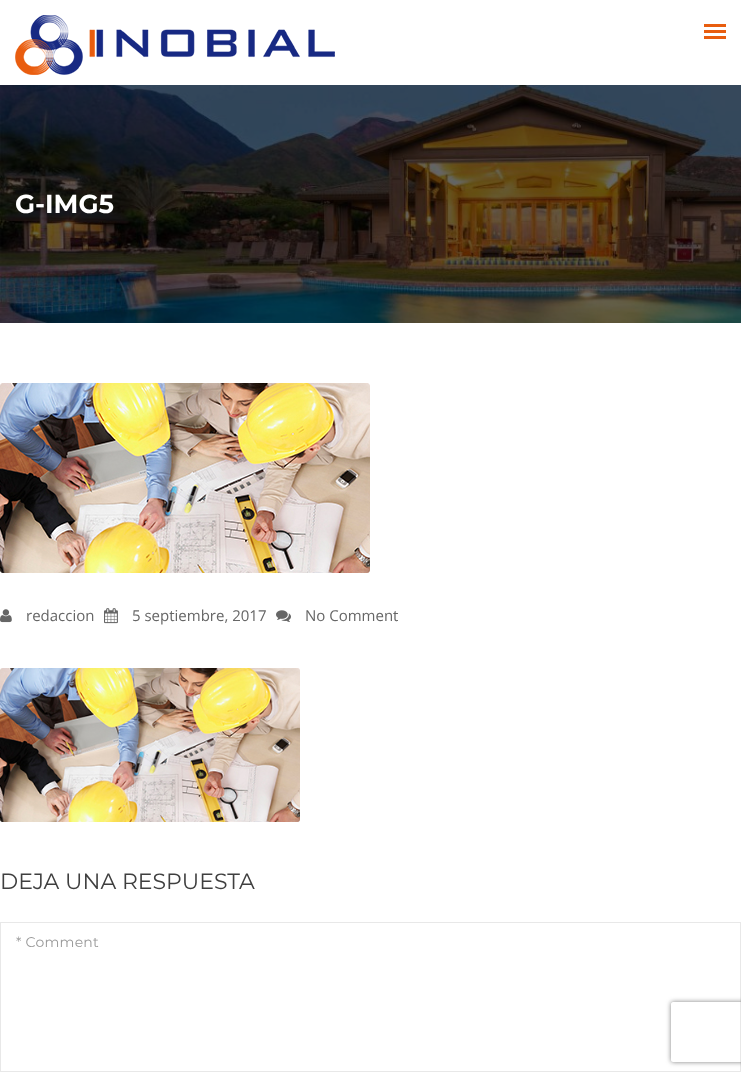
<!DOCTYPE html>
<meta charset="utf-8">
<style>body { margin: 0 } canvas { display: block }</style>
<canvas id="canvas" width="741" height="1076"></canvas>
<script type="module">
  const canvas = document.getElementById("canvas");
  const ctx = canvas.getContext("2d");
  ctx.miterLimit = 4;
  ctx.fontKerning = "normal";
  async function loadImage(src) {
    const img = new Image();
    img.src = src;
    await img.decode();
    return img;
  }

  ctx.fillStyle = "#ffffff";
  ctx.fillRect(0, 0, 741, 1076);
  ctx.drawImage(await loadImage("img1.png"), 15, 15, 320, 60);
  ctx.fillStyle = "#e85d0f";
  ctx.fillRect(704, 24, 22, 3);
  ctx.fillRect(704, 30, 22, 3);
  ctx.fillRect(704, 36, 22, 3);
  ctx.drawImage(await loadImage("img2.png"), 0, 85, 741, 238);
  ctx.font = "bold 26px Montserrat";
  ctx.fillStyle = "#ffffff";
  ctx.fillText("G-IMG5", 15, 213);
  ctx.drawImage(await loadImage("img3.png"), 0, 383, 370, 190);
  ctx.drawImage(await loadImage("img4.png"), 0, 609, 12, 14);
  ctx.font = "15px Open Sans";
  ctx.fillStyle = "#666666";
  ctx.fillText("redaccion", 26, 621);
  ctx.drawImage(await loadImage("img5.png"), 104, 608, 14, 16);
  ctx.fillText("5 septiembre, 2017", 132, 621);
  ctx.drawImage(await loadImage("img6.png"), 276, 610, 15, 12);
  ctx.fillText("No Comment", 305, 621);
  ctx.drawImage(await loadImage("img7.png"), 0, 668, 300, 154);
  ctx.font = "100 22px Montserrat";
  ctx.fillStyle = "#3f3f3f";
  ctx.fillText("DEJA UNA RESPUESTA", 0, 889);
  ctx.strokeStyle = "#e8e8e8";
  ctx.strokeRect(0.5, 922.5, 740, 149);
  ctx.letterSpacing = "0.25px";
  ctx.font = "100 14px Montserrat";
  ctx.fillStyle = "#999999";
  ctx.fillText("* Comment", 16, 947);
  ctx.save();
  ctx.beginPath();
  ctx.moveTo(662, 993);
  ctx.lineTo(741, 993);
  ctx.lineTo(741, 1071);
  ctx.lineTo(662, 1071);
  ctx.closePath();
  ctx.moveTo(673, 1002);
  ctx.lineTo(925, 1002);
  ctx.bezierCurveTo(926, 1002, 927, 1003, 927, 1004);
  ctx.lineTo(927, 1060);
  ctx.bezierCurveTo(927, 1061, 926, 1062, 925, 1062);
  ctx.lineTo(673, 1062);
  ctx.bezierCurveTo(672, 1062, 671, 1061, 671, 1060);
  ctx.lineTo(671, 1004);
  ctx.bezierCurveTo(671, 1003, 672, 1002, 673, 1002);
  ctx.closePath();
  ctx.clip("evenodd");
  ctx.fillStyle = "#808080";
  ctx.filter = "blur(2.5px)";
  ctx.beginPath();
  ctx.roundRect(671, 1002, 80, 60, 2);
  ctx.fill();
  ctx.filter = "none";
  ctx.restore();
</script>
